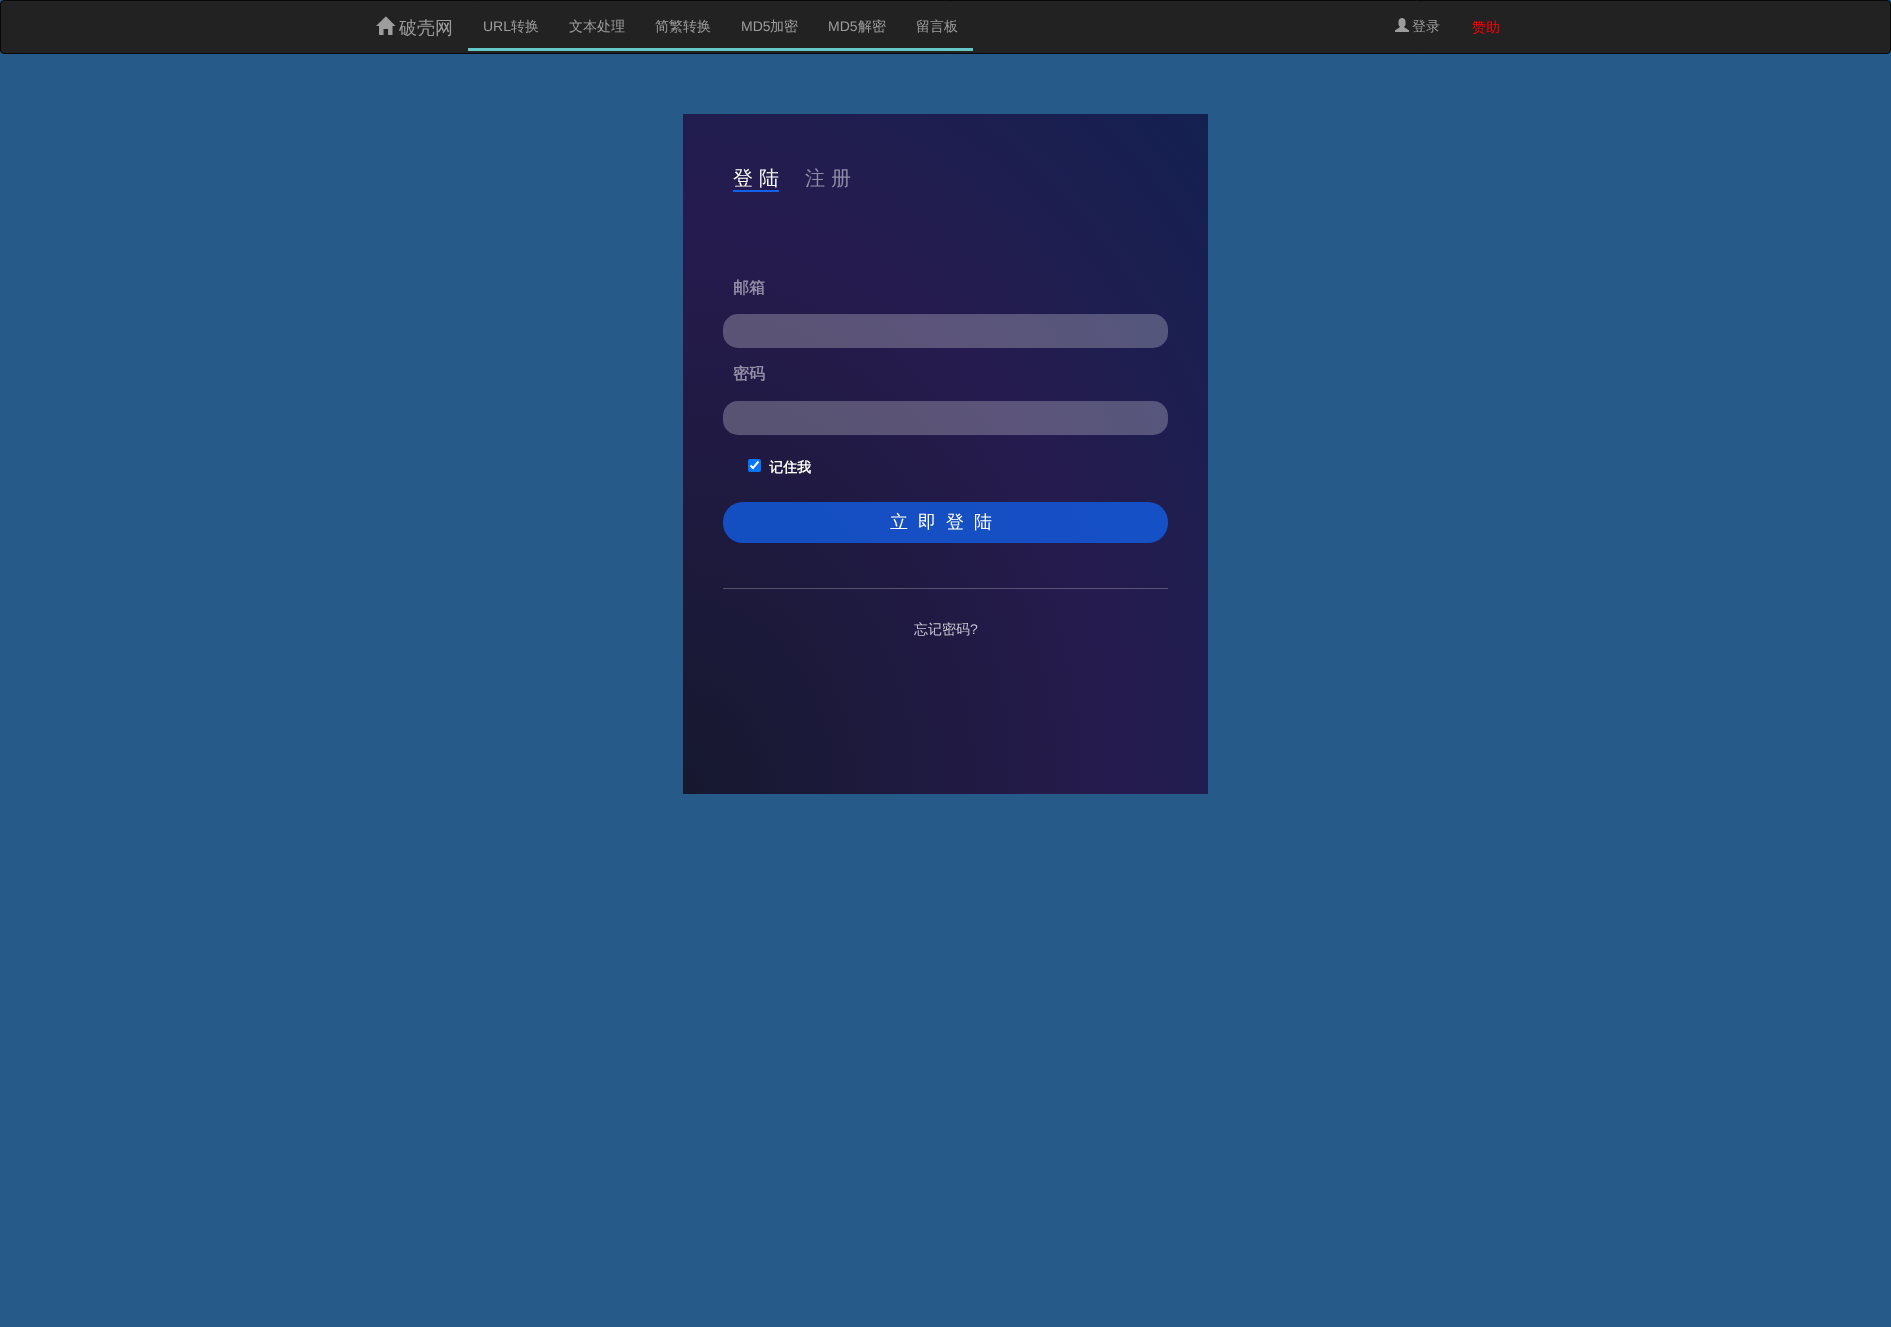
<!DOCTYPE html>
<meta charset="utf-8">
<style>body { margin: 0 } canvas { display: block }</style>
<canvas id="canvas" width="1891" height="1327"></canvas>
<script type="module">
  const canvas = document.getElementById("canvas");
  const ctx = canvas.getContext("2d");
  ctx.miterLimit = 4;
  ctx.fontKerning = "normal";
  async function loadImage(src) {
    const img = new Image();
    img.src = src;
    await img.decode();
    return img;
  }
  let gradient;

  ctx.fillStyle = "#265a88";
  ctx.fillRect(0, 0, 1891, 1327);
  ctx.fillStyle = "#222222";
  ctx.beginPath();
  ctx.roundRect(0.5, 0.5, 1890, 53, 3.5);
  ctx.fill();
  ctx.strokeStyle = "#080808";
  ctx.stroke();
  ctx.drawImage(await loadImage("img1.png"), 376, 16, 20, 19);
  ctx.font = "500 18px WenQuanYi Zen Hei";
  ctx.fillStyle = "#9d9d9d";
  ctx.fillText("破壳网", 399, 34);
  ctx.fillStyle = "#64c8c8";
  ctx.fillRect(468, 48, 505, 3);
  ctx.font = "14px Liberation Sans";
  ctx.fillStyle = "#9d9d9d";
  ctx.fillText("URL", 483, 31);
  ctx.font = "500 14px WenQuanYi Zen Hei";
  ctx.fillText("转换", 511, 31);
  ctx.fillText("文本处理", 569, 31);
  ctx.fillText("简繁转换", 655, 31);
  ctx.font = "14px Liberation Sans";
  ctx.fillText("MD5", 741, 31);
  ctx.font = "500 14px WenQuanYi Zen Hei";
  ctx.fillText("加密", 770, 31);
  ctx.font = "14px Liberation Sans";
  ctx.fillText("MD5", 828, 31);
  ctx.font = "500 14px WenQuanYi Zen Hei";
  ctx.fillText("解密", 858, 31);
  ctx.fillText("留言板", 916, 31);
  ctx.drawImage(await loadImage("img2.png"), 1395, 18, 14, 14);
  ctx.fillText("登录", 1412, 31);
  ctx.fillStyle = "#ff0000";
  ctx.fillText("赞助", 1472, 32);
  gradient = ctx.createRadialGradient(683, 612.42, 0, 683, 612.42, 742);
  gradient.addColorStop(0, "#16182f");
  gradient.addColorStop(0.59, "#261b4e");
  gradient.addColorStop(1, "#132151");
  ctx.fillStyle = gradient;
  ctx.beginPath();
  ctx.rect(683, 114, 525, 680);
  ctx.save();
  ctx.clip();
  ctx.scale(1, 962 / 742);
  ctx.fillRect(0, 0, 1891, 1024);
  ctx.restore();
  gradient = ctx.createRadialGradient(683, 612.42, 0, 683, 612.42, 742);
  gradient.addColorStop(0, "#505263");
  gradient.addColorStop(0.59, "#5c547a");
  gradient.addColorStop(1, "#4e597d");
  ctx.fillStyle = gradient;
  ctx.beginPath();
  ctx.rect(723, 588, 445, 1);
  ctx.save();
  ctx.clip();
  ctx.scale(1, 962 / 742);
  ctx.fillRect(0, 0, 1891, 1024);
  ctx.restore();
  ctx.font = "500 20px WenQuanYi Zen Hei";
  ctx.fillStyle = "#ffffff";
  ctx.fillText("登 陆", 733, 185);
  ctx.fillStyle = "#1161ed";
  ctx.fillRect(733, 190, 46, 2);
  ctx.fillStyle = "#928da5";
  ctx.fillText("注 册", 805, 185);
  ctx.font = "bold 16px WenQuanYi Zen Hei";
  ctx.fillText("邮箱", 733, 293);
  ctx.fillStyle = "rgba(255, 255, 255, 0.25)";
  ctx.beginPath();
  ctx.roundRect(723, 314, 445, 34, 15);
  ctx.fill();
  ctx.fillStyle = "#928da5";
  ctx.fillText("密码", 733, 379);
  ctx.fillStyle = "rgba(255, 255, 255, 0.25)";
  ctx.beginPath();
  ctx.roundRect(723, 401, 445, 34, 15);
  ctx.fill();
  ctx.fillStyle = "#0075ff";
  ctx.beginPath();
  ctx.roundRect(748, 459, 13, 13, 2);
  ctx.fill();
  ctx.beginPath();
  ctx.moveTo(750.5, 465.5);
  ctx.lineTo(753, 468);
  ctx.lineTo(758.5, 461.5);
  ctx.strokeStyle = "#ffffff";
  ctx.lineWidth = 2.1;
  ctx.stroke();
  ctx.font = "bold 14px WenQuanYi Zen Hei";
  ctx.fillStyle = "#ffffff";
  ctx.fillText("记住我", 769, 472);
  ctx.fillStyle = "rgba(17, 97, 237, 0.75)";
  ctx.beginPath();
  ctx.roundRect(723, 502, 445, 41, 20);
  ctx.fill();
  ctx.letterSpacing = "10px";
  ctx.font = "500 18px WenQuanYi Zen Hei";
  ctx.fillStyle = "#ffffff";
  ctx.fillText("立即登陆", 890, 528);
  ctx.letterSpacing = "0px";
  ctx.font = "500 14px WenQuanYi Zen Hei";
  ctx.fillStyle = "#c7c6d0";
  ctx.fillText("忘记密码", 914, 634);
  ctx.font = "14px Liberation Sans";
  ctx.fillText("?", 970, 634);
</script>
